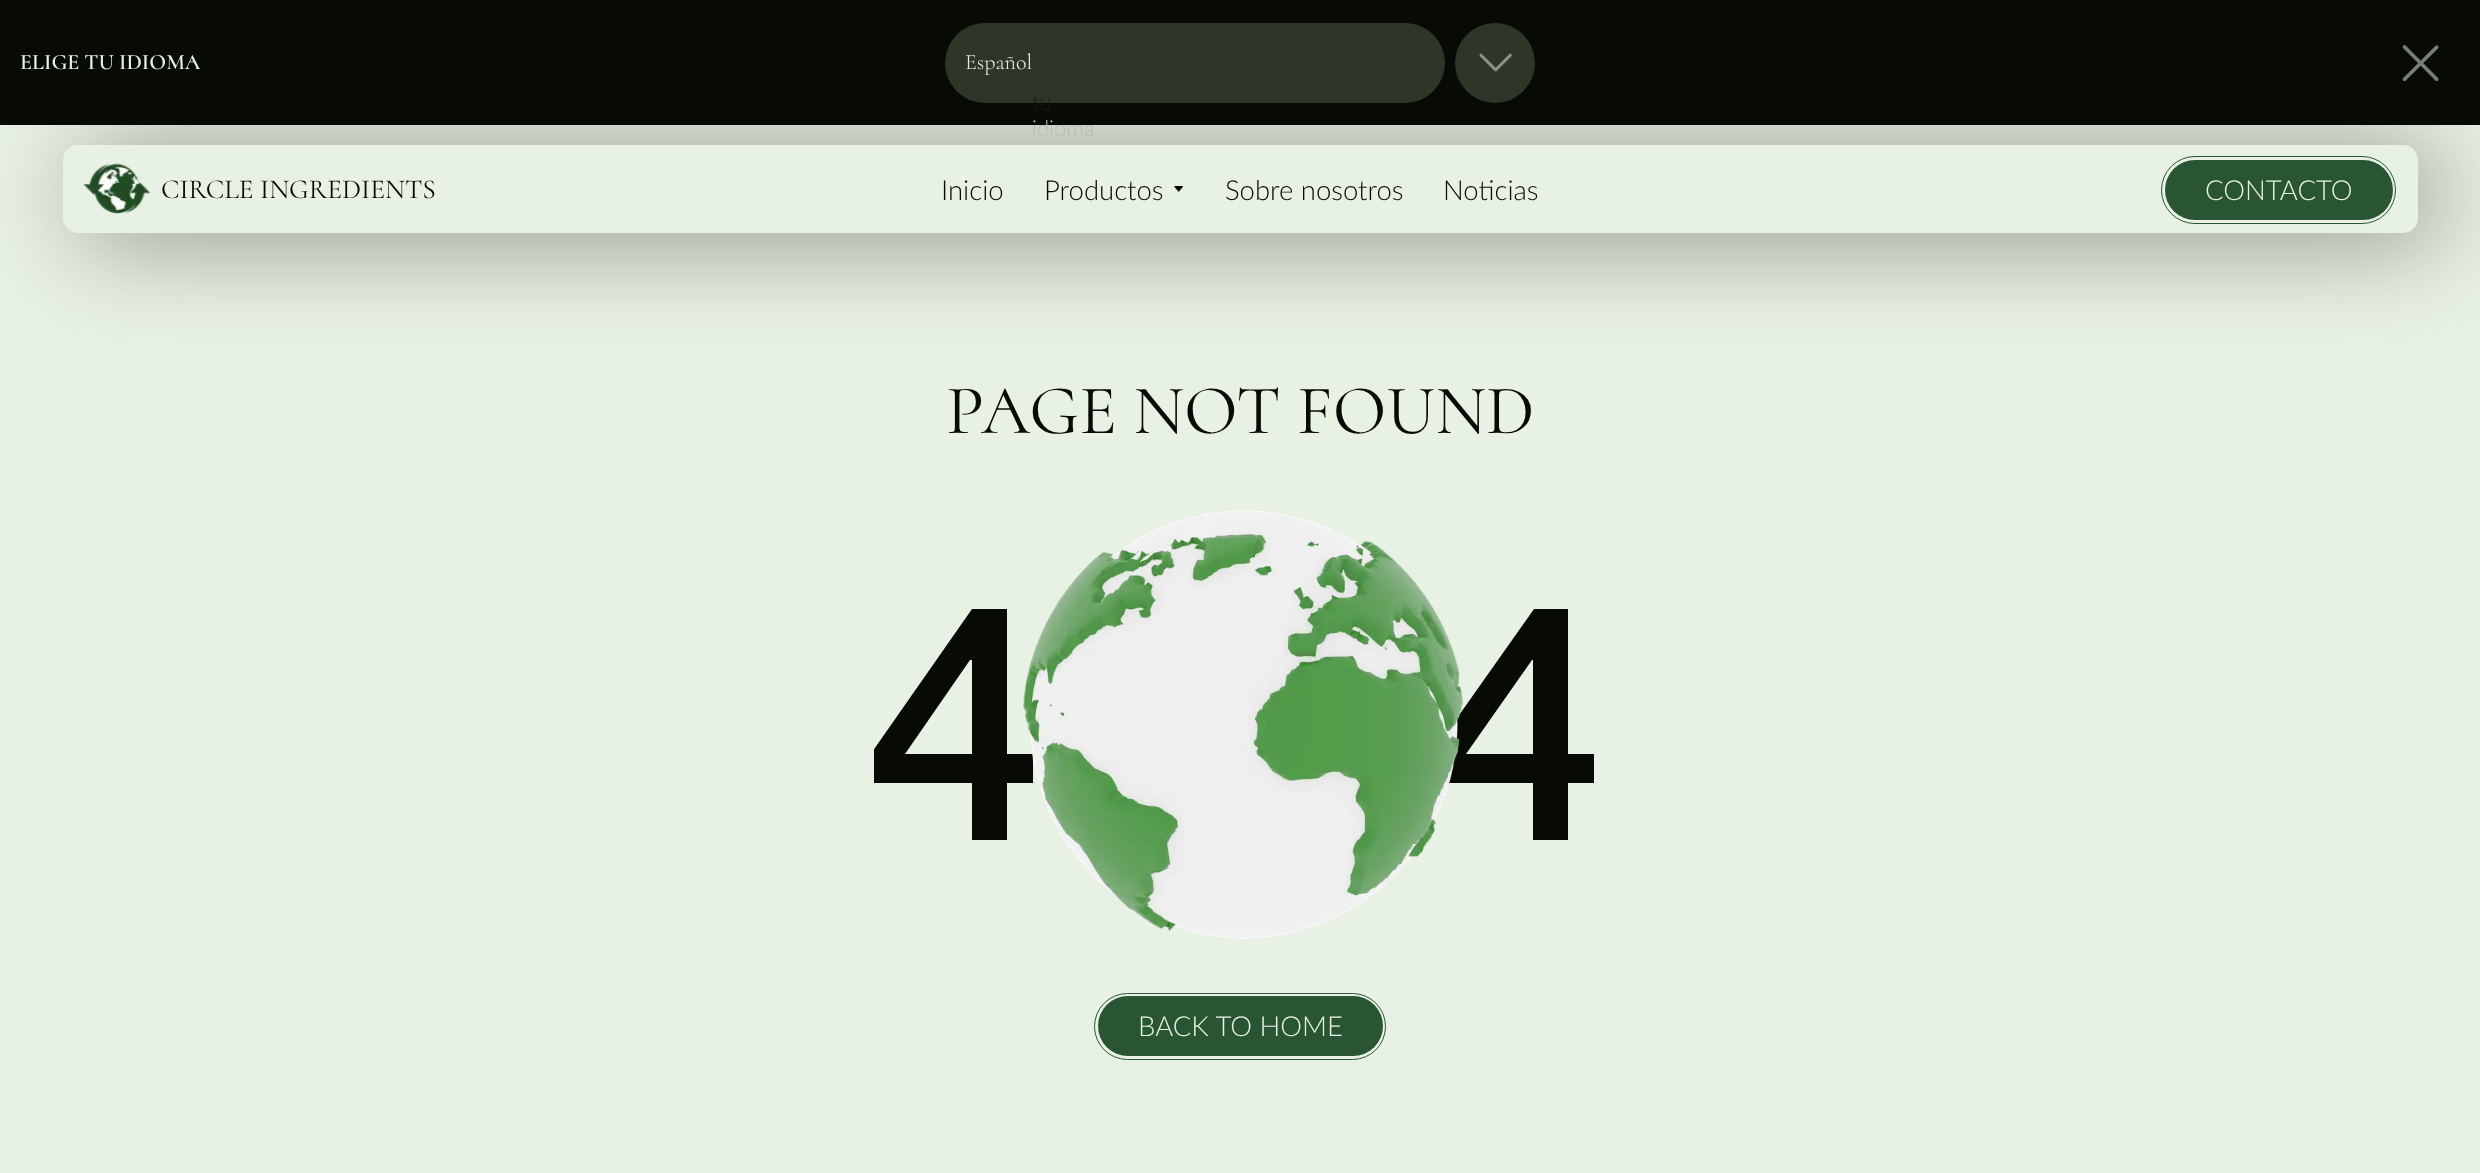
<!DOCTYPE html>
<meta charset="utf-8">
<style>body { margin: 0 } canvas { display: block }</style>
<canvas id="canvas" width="2480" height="1173"></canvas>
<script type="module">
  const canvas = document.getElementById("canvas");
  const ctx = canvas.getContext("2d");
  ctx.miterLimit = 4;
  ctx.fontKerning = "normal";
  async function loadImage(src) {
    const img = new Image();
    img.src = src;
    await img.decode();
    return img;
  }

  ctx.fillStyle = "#e8f2e4";
  ctx.fillRect(0, 0, 2480, 1173);
  ctx.fillStyle = "#8f948b";
  ctx.filter = "blur(51px)";
  ctx.beginPath();
  ctx.roundRect(79, 149, 2360, 92, 18);
  ctx.fill();
  ctx.filter = "none";
  ctx.fillStyle = "#070a05";
  ctx.fillRect(0, 0, 2480, 125);
  ctx.font = "600 22px Cormorant";
  ctx.fillStyle = "#e8f2e4";
  ctx.fillText("ELIGE TU IDIOMA", 20, 69);
  ctx.fillStyle = "#2e3727";
  ctx.beginPath();
  ctx.roundRect(945, 23, 500, 80, 40);
  ctx.fill();
  ctx.font = "300 22px Cormorant";
  ctx.fillStyle = "#e8f2e4";
  ctx.fillText("Español", 965, 69);
  ctx.font = "300 22px Lato";
  ctx.fillStyle = "#181d13";
  ctx.fillText("tu", 1032, 110);
  ctx.fillStyle = "#b7beb3";
  ctx.fillText("idioma", 1032, 136);
  ctx.fillStyle = "#2e3727";
  ctx.beginPath();
  ctx.arc(1495, 63, 40, 0, Math.PI * 2);
  ctx.fill();
  ctx.drawImage(await loadImage("img1.png"), 1479, 53, 33, 19);
  ctx.drawImage(await loadImage("img2.png"), 2402, 45, 37, 37);
  ctx.fillStyle = "#e8f2e4";
  ctx.beginPath();
  ctx.roundRect(63, 145, 2355, 88, 15);
  ctx.fill();
  ctx.drawImage(await loadImage("img3.png"), 83, 163, 68, 51);
  ctx.font = "27.5px Cormorant";
  ctx.fillStyle = "#070a05";
  ctx.fillText("CIRCLE INGREDIENTS", 161, 198);
  ctx.font = "300 27.5px Lato";
  ctx.fillText("Inicio", 941, 200);
  ctx.fillText("Productos", 1044, 200);
  ctx.drawImage(await loadImage("img4.png"), 1174, 186, 9, 6);
  ctx.fillText("Sobre nosotros", 1225, 200);
  ctx.fillText("Noticias", 1443, 200);
  ctx.fillStyle = "#2a5533";
  ctx.beginPath();
  ctx.roundRect(2165, 160, 228, 60, 30);
  ctx.fill();
  ctx.beginPath();
  ctx.roundRect(2161.5, 156.5, 234, 67, 33.5);
  ctx.strokeStyle = "#2a5533";
  ctx.stroke();
  ctx.fillStyle = "#e8f2e4";
  ctx.fillText("CONTACTO", 2205, 200);
  ctx.font = "70px Cormorant";
  ctx.fillStyle = "#070a05";
  ctx.fillText("PAGE NOT FOUND", 946, 433);
  ctx.save();
  ctx.beginPath();
  ctx.rect(874, 609, 160, 231);
  ctx.clip();
  ctx.beginPath();
  ctx.moveTo(972, 609);
  ctx.lineTo(872, 752);
  ctx.lineTo(872, 783);
  ctx.lineTo(972, 783);
  ctx.lineTo(972, 840);
  ctx.lineTo(1007, 840);
  ctx.lineTo(1007, 783);
  ctx.lineTo(1033, 783);
  ctx.lineTo(1033, 754);
  ctx.lineTo(1007, 754);
  ctx.lineTo(1007, 609);
  ctx.closePath();
  ctx.moveTo(972, 660);
  ctx.lineTo(972, 754);
  ctx.lineTo(905, 754);
  ctx.lineTo(970, 660);
  ctx.closePath();
  ctx.fill();
  ctx.restore();
  ctx.beginPath();
  ctx.moveTo(1534, 609);
  ctx.lineTo(1433, 752);
  ctx.lineTo(1433, 783);
  ctx.lineTo(1533, 783);
  ctx.lineTo(1533, 840);
  ctx.lineTo(1568, 840);
  ctx.lineTo(1568, 783);
  ctx.lineTo(1594, 783);
  ctx.lineTo(1594, 754);
  ctx.lineTo(1568, 754);
  ctx.lineTo(1568, 609);
  ctx.closePath();
  ctx.moveTo(1533, 660);
  ctx.lineTo(1533, 754);
  ctx.lineTo(1466, 754);
  ctx.lineTo(1532, 660);
  ctx.closePath();
  ctx.fill();
  ctx.drawImage(await loadImage("img5.png"), 1023, 510, 440, 429);
  ctx.fillStyle = "#2a5533";
  ctx.beginPath();
  ctx.roundRect(1098, 996, 285, 60, 30);
  ctx.fill();
  ctx.beginPath();
  ctx.roundRect(1094.5, 993.5, 291, 66, 33);
  ctx.stroke();
  ctx.font = "300 27.5px Lato";
  ctx.fillStyle = "#e8f2e4";
  ctx.fillText("BACK TO HOME", 1138, 1036);
</script>
